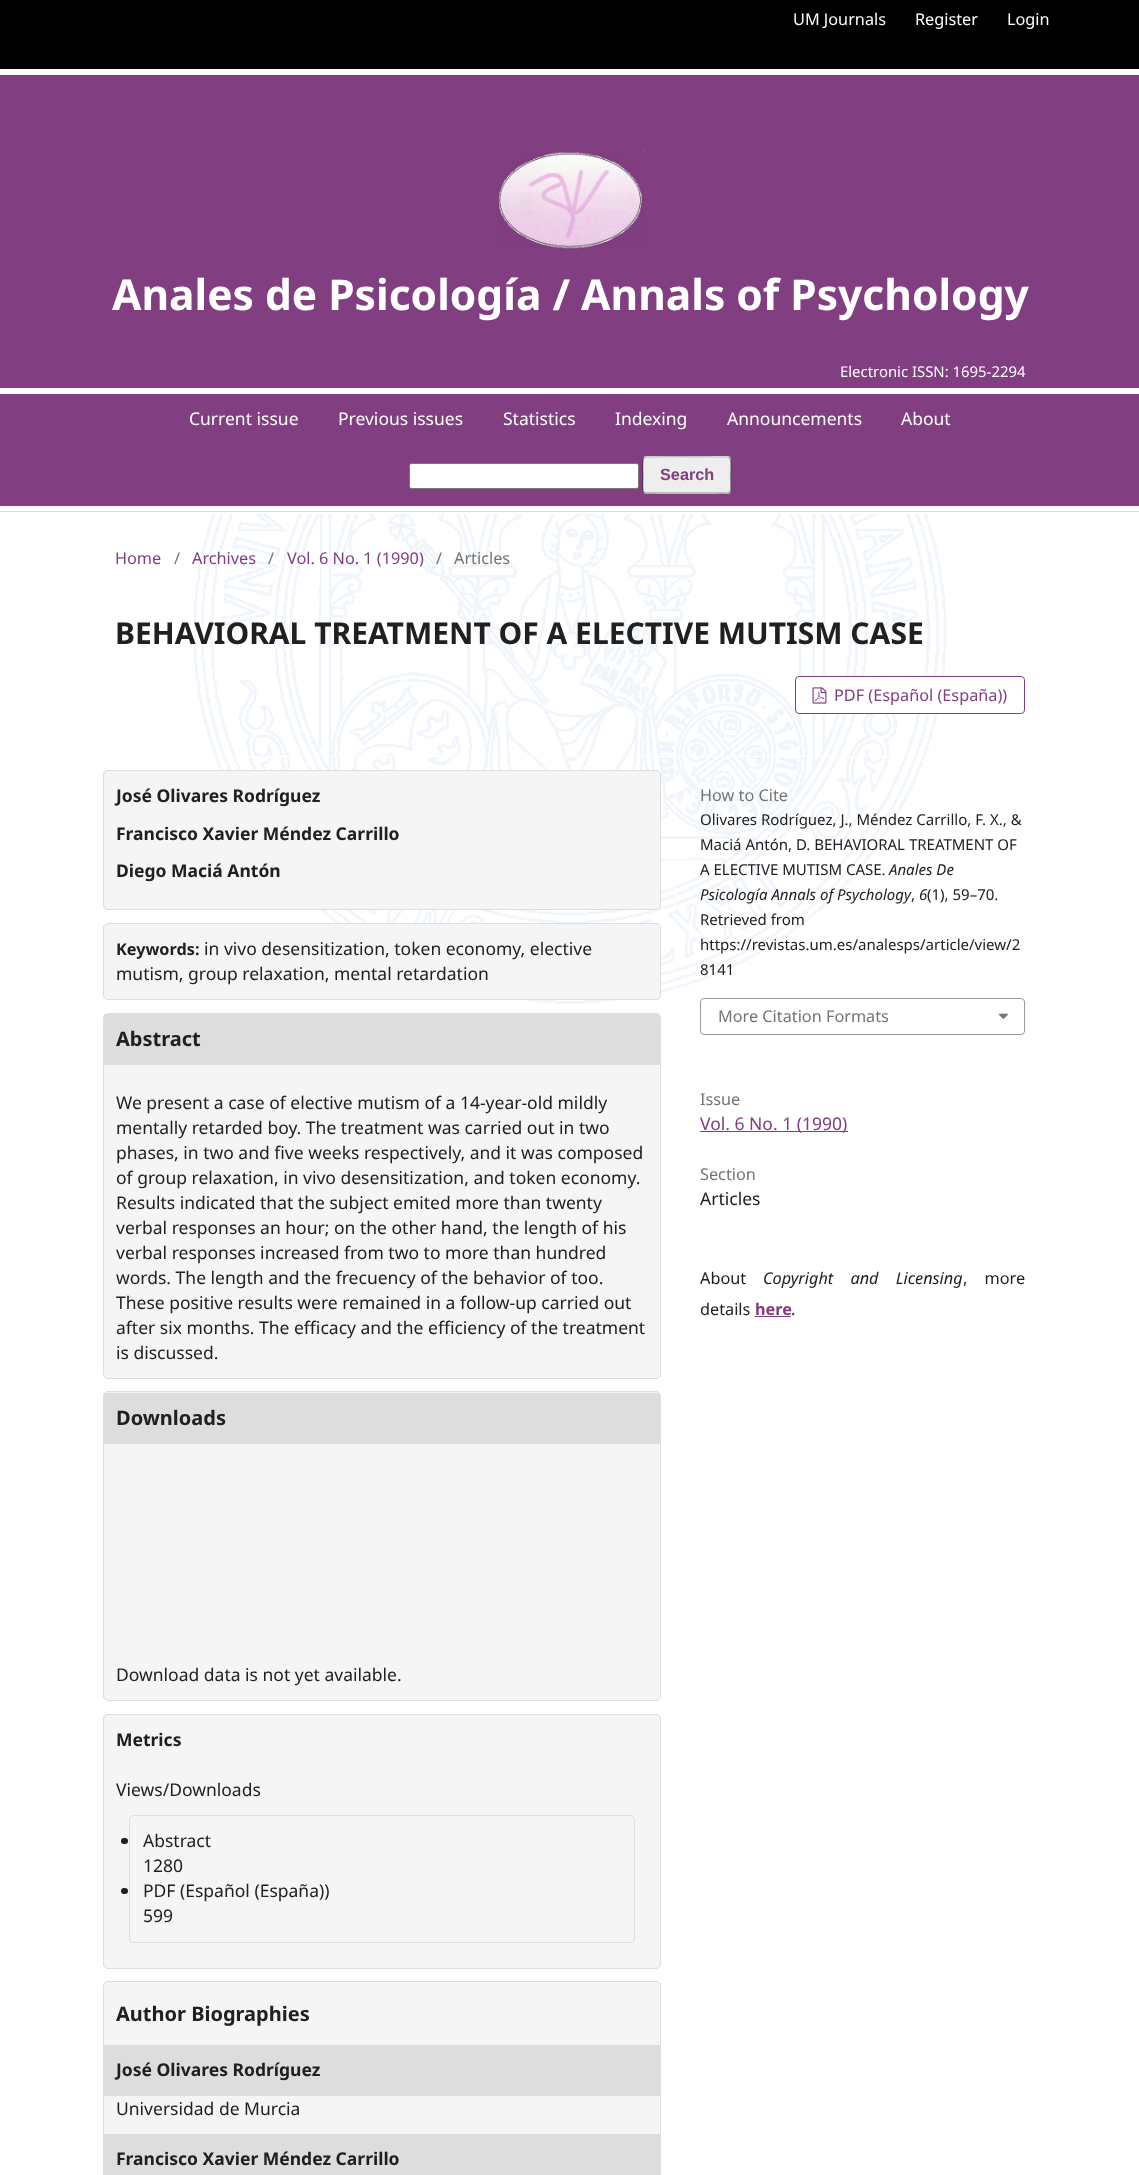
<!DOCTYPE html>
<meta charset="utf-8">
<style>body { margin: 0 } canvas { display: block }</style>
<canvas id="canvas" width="1139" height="2175"></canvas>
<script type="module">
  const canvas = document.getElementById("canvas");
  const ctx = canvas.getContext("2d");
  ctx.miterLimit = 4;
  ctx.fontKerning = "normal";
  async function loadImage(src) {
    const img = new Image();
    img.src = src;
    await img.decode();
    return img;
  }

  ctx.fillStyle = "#ffffff";
  ctx.fillRect(0, 0, 1139, 2175);
  ctx.drawImage(await loadImage("img1.png"), 194, 514, 753, 490);
  ctx.fillStyle = "#813e81";
  ctx.fillRect(0, 75, 1139, 431);
  ctx.fillStyle = "#000000";
  ctx.fillRect(0, 0, 1139, 69);
  ctx.font = "16.25px Noto Sans";
  ctx.fillStyle = "#ffffff";
  ctx.fillText("UM Journals", 793, 25);
  ctx.fillText("Register", 915, 25);
  ctx.fillText("Login", 1007, 25);
  ctx.drawImage(await loadImage("img2.png"), 497, 150, 147, 100);
  ctx.font = "bold 42.5px Noto Sans";
  ctx.fillText("Anales de Psicología / Annals of Psychology", 112, 310);
  ctx.font = "14.9px Noto Sans";
  ctx.fillText("Electronic ISSN: 1695-2294", 840, 377);
  ctx.fillRect(0, 388, 1139, 6);
  ctx.font = "17.5px Noto Sans";
  ctx.fillText("Current issue", 189, 425);
  ctx.fillText("Previous issues", 338, 425);
  ctx.fillText("Statistics", 503, 425);
  ctx.fillText("Indexing", 615, 425);
  ctx.fillText("Announcements", 727, 425);
  ctx.fillText("About", 901, 425);
  ctx.beginPath();
  ctx.roundRect(409.5, 463.5, 229, 25, 2);
  ctx.fill();
  ctx.strokeStyle = "#767676";
  ctx.stroke();
  ctx.fillStyle = "#eeeeee";
  ctx.beginPath();
  ctx.roundRect(643, 456, 88, 38, 4);
  ctx.fill();
  ctx.beginPath();
  ctx.moveTo(644, 458);
  ctx.lineTo(644.5, 457.5);
  ctx.bezierCurveTo(646.5, 456, 706.5, 457, 714, 457);
  ctx.lineTo(727.5, 457);
  ctx.lineTo(729.5, 458);
  ctx.strokeStyle = "#bbbbbb";
  ctx.lineWidth = 1.2;
  ctx.stroke();
  ctx.beginPath();
  ctx.moveTo(729.5, 458);
  ctx.bezierCurveTo(732, 460, 730.5, 472, 730.5, 475);
  ctx.bezierCurveTo(730.5, 496, 734.5, 493, 714, 493);
  ctx.lineTo(660, 493);
  ctx.bezierCurveTo(639, 493, 643, 496, 643, 475);
  ctx.bezierCurveTo(643, 472, 642, 460, 644, 458);
  ctx.strokeStyle = "rgba(0, 0, 0, 0.4)";
  ctx.stroke();
  ctx.font = "bold 16.25px Liberation Sans";
  ctx.fillStyle = "#813e81";
  ctx.fillText("Search", 660, 480);
  ctx.fillStyle = "#dddddd";
  ctx.fillRect(0, 511, 1139, 1);
  ctx.font = "16.25px Noto Sans";
  ctx.fillStyle = "#813e81";
  ctx.fillText("Home", 115, 564);
  ctx.fillStyle = "#727374";
  ctx.fillText("/", 174, 564);
  ctx.fillStyle = "#813e81";
  ctx.fillText("Archives", 192, 564);
  ctx.fillStyle = "#727374";
  ctx.fillText("/", 268, 564);
  ctx.fillStyle = "#813e81";
  ctx.fillText("Vol. 6 No. 1 (1990)", 287, 564);
  ctx.fillStyle = "#727374";
  ctx.fillText("/", 436, 564);
  ctx.fillText("Articles", 454, 564);
  ctx.font = "bold 30px Noto Sans";
  ctx.fillStyle = "#202020";
  ctx.fillText("BEHAVIORAL TREATMENT OF A ELECTIVE MUTISM CASE", 115, 644);
  ctx.fillStyle = "#ffffff";
  ctx.beginPath();
  ctx.roundRect(795.5, 676.5, 229, 37, 3.5);
  ctx.fill();
  ctx.strokeStyle = "#813e81";
  ctx.lineWidth = 1;
  ctx.stroke();
  ctx.drawImage(await loadImage("img3.png"), 812, 687, 15, 17);
  ctx.font = "16.25px Noto Sans";
  ctx.fillStyle = "#813e81";
  ctx.fillText("PDF (Español (España))", 834, 701);
  ctx.fillStyle = "#ffffff";
  ctx.fillRect(215, 756, 710, 1);
  ctx.fillRect(674, 758, 1, 231);
  ctx.fillStyle = "#f5f5f5";
  ctx.beginPath();
  ctx.roundRect(103.5, 770.5, 557, 139, 4.5);
  ctx.fill();
  ctx.strokeStyle = "#dddddd";
  ctx.stroke();
  ctx.font = "bold 17.5px Noto Sans";
  ctx.fillStyle = "#202020";
  ctx.fillText("José Olivares Rodríguez", 116, 802);
  ctx.fillText("Francisco Xavier Méndez Carrillo", 116, 840);
  ctx.fillText("Diego Maciá Antón", 116, 877);
  ctx.fillStyle = "#f5f5f5";
  ctx.beginPath();
  ctx.roundRect(103.5, 923.5, 557, 76, 4.5);
  ctx.fill();
  ctx.stroke();
  ctx.font = "bold 16.25px Noto Sans";
  ctx.fillStyle = "#202020";
  ctx.fillText("Keywords:", 116, 955);
  ctx.font = "17.5px Noto Sans";
  ctx.fillText("in vivo desensitization, token economy, elective", 204, 955);
  ctx.fillText("mutism, group relaxation, mental retardation", 116, 980);
  ctx.fillStyle = "#f5f5f5";
  ctx.beginPath();
  ctx.roundRect(103.5, 1013.5, 557, 365, 4.5);
  ctx.fill();
  ctx.stroke();
  ctx.fillStyle = "#dddddd";
  ctx.fillRect(104, 1014, 556, 51);
  ctx.font = "bold 20px Noto Sans";
  ctx.fillStyle = "#202020";
  ctx.fillText("Abstract", 116, 1046);
  ctx.font = "17.5px Noto Sans";
  ctx.fillText("We present a case of elective mutism of a 14-year-old mildly", 116, 1109);
  ctx.fillText("mentally retarded boy. The treatment was carried out in two", 116, 1134);
  ctx.fillText("phases, in two and five weeks respectively, and it was composed", 116, 1159);
  ctx.fillText("of group relaxation, in vivo desensitization, and token economy.", 116, 1184);
  ctx.fillText("Results indicated that the subject emited more than twenty", 116, 1209);
  ctx.fillText("verbal responses an hour; on the other hand, the length of his", 116, 1234);
  ctx.fillText("verbal responses increased from two to more than hundred", 116, 1259);
  ctx.fillText("words. The length and the frecuency of the behavior of too.", 116, 1284);
  ctx.fillText("These positive results were remained in a follow-up carried out", 116, 1309);
  ctx.fillText("after six months. The efficacy and the efficiency of the treatment", 116, 1334);
  ctx.fillText("is discussed.", 116, 1359);
  ctx.fillStyle = "#f5f5f5";
  ctx.beginPath();
  ctx.roundRect(103.5, 1391.5, 557, 309, 4.5);
  ctx.fill();
  ctx.stroke();
  ctx.fillStyle = "#dddddd";
  ctx.fillRect(104, 1393, 556, 51);
  ctx.font = "bold 20px Noto Sans";
  ctx.fillStyle = "#202020";
  ctx.fillText("Downloads", 116, 1425);
  ctx.font = "17.5px Noto Sans";
  ctx.fillText("Download data is not yet available.", 116, 1681);
  ctx.fillStyle = "#f5f5f5";
  ctx.beginPath();
  ctx.roundRect(103.5, 1714.5, 557, 254, 4.5);
  ctx.fill();
  ctx.stroke();
  ctx.font = "bold 17.5px Noto Sans";
  ctx.fillStyle = "#202020";
  ctx.fillText("Metrics", 116, 1746);
  ctx.font = "17.5px Noto Sans";
  ctx.fillText("Views/Downloads", 116, 1796);
  ctx.beginPath();
  ctx.roundRect(129.5, 1815.5, 505, 127, 4.5);
  ctx.stroke();
  ctx.beginPath();
  ctx.roundRect(121, 1838, 7, 6, 3);
  ctx.fill();
  ctx.fillText("Abstract", 143, 1847);
  ctx.fillText("1280", 143, 1872);
  ctx.beginPath();
  ctx.roundRect(121, 1888, 7, 6, 3);
  ctx.fill();
  ctx.fillText("PDF (Español (España))", 143, 1897);
  ctx.fillText("599", 143, 1922);
  ctx.fillStyle = "#f5f5f5";
  ctx.beginPath();
  ctx.roundRect(103.5, 1981.5, 557, 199, 4.5);
  ctx.fill();
  ctx.stroke();
  ctx.font = "bold 20px Noto Sans";
  ctx.fillStyle = "#202020";
  ctx.fillText("Author Biographies", 116, 2021);
  ctx.fillStyle = "#dddddd";
  ctx.fillRect(104, 2045, 556, 51);
  ctx.font = "bold 17.5px Noto Sans";
  ctx.fillStyle = "#202020";
  ctx.fillText("José Olivares Rodríguez", 116, 2076);
  ctx.font = "17.5px Noto Sans";
  ctx.fillText("Universidad de Murcia", 116, 2115);
  ctx.fillStyle = "#dddddd";
  ctx.fillRect(104, 2134, 556, 41);
  ctx.font = "bold 17.5px Noto Sans";
  ctx.fillStyle = "#202020";
  ctx.fillText("Francisco Xavier Méndez Carrillo", 116, 2165);
  ctx.font = "16.25px Noto Sans";
  ctx.fillStyle = "#727374";
  ctx.fillText("How to Cite", 700, 801);
  ctx.font = "15px Noto Sans";
  ctx.fillStyle = "#202020";
  ctx.fillText("Olivares Rodríguez, J., Méndez Carrillo, F. X., &", 700, 825);
  ctx.fillText("Maciá Antón, D. BEHAVIORAL TREATMENT OF", 700, 850);
  ctx.fillText("A ELECTIVE MUTISM CASE.", 700, 875);
  ctx.font = "italic 15px Noto Sans";
  ctx.fillText("Anales De", 889, 875);
  ctx.fillText("Psicología Annals of Psychology", 700, 900);
  ctx.font = "15px Noto Sans";
  ctx.fillText(",", 911, 900);
  ctx.font = "italic 15px Noto Sans";
  ctx.fillText("6", 919, 900);
  ctx.font = "15px Noto Sans";
  ctx.fillText("(1), 59–70.", 927, 900);
  ctx.fillText("Retrieved from", 700, 925);
  ctx.fillText("https://revistas.um.es/analesps/article/view/2", 700, 950);
  ctx.fillText("8141", 700, 975);
  ctx.beginPath();
  ctx.roundRect(700.5, 998.5, 324, 36, 3.5);
  ctx.strokeStyle = "#999999";
  ctx.stroke();
  ctx.font = "16.25px Noto Sans";
  ctx.fillStyle = "#727374";
  ctx.fillText("More Citation Formats", 718, 1022);
  ctx.drawImage(await loadImage("img4.png"), 998, 1013, 10, 6);
  ctx.fillText("Issue", 700, 1105);
  ctx.fillStyle = "#813e81";
  ctx.fillRect(700, 1131, 148, 1);
  ctx.font = "17.5px Noto Sans";
  ctx.fillText("Vol. 6 No. 1 (1990)", 700, 1130);
  ctx.font = "16.25px Noto Sans";
  ctx.fillStyle = "#727374";
  ctx.fillText("Section", 700, 1180);
  ctx.font = "17.5px Noto Sans";
  ctx.fillStyle = "#202020";
  ctx.fillText("Articles", 700, 1205);
  ctx.font = "16.25px Noto Sans";
  ctx.fillText("About", 700, 1284);
  ctx.wordSpacing = "13px";
  ctx.font = "italic 16.25px Noto Sans";
  ctx.fillText("Copyright and Licensing", 763, 1284);
  ctx.font = "16.25px Noto Sans";
  ctx.fillText(", more", 963, 1284);
  ctx.wordSpacing = "0px";
  ctx.fillText("details", 700, 1315);
  ctx.font = "bold 16.25px Noto Sans";
  ctx.fillStyle = "#813e81";
  ctx.fillText("here", 755, 1315);
  ctx.fillRect(755, 1316, 36, 1);
  ctx.font = "16.25px Noto Sans";
  ctx.fillStyle = "#202020";
  ctx.fillText(".", 791, 1315);
</script>
